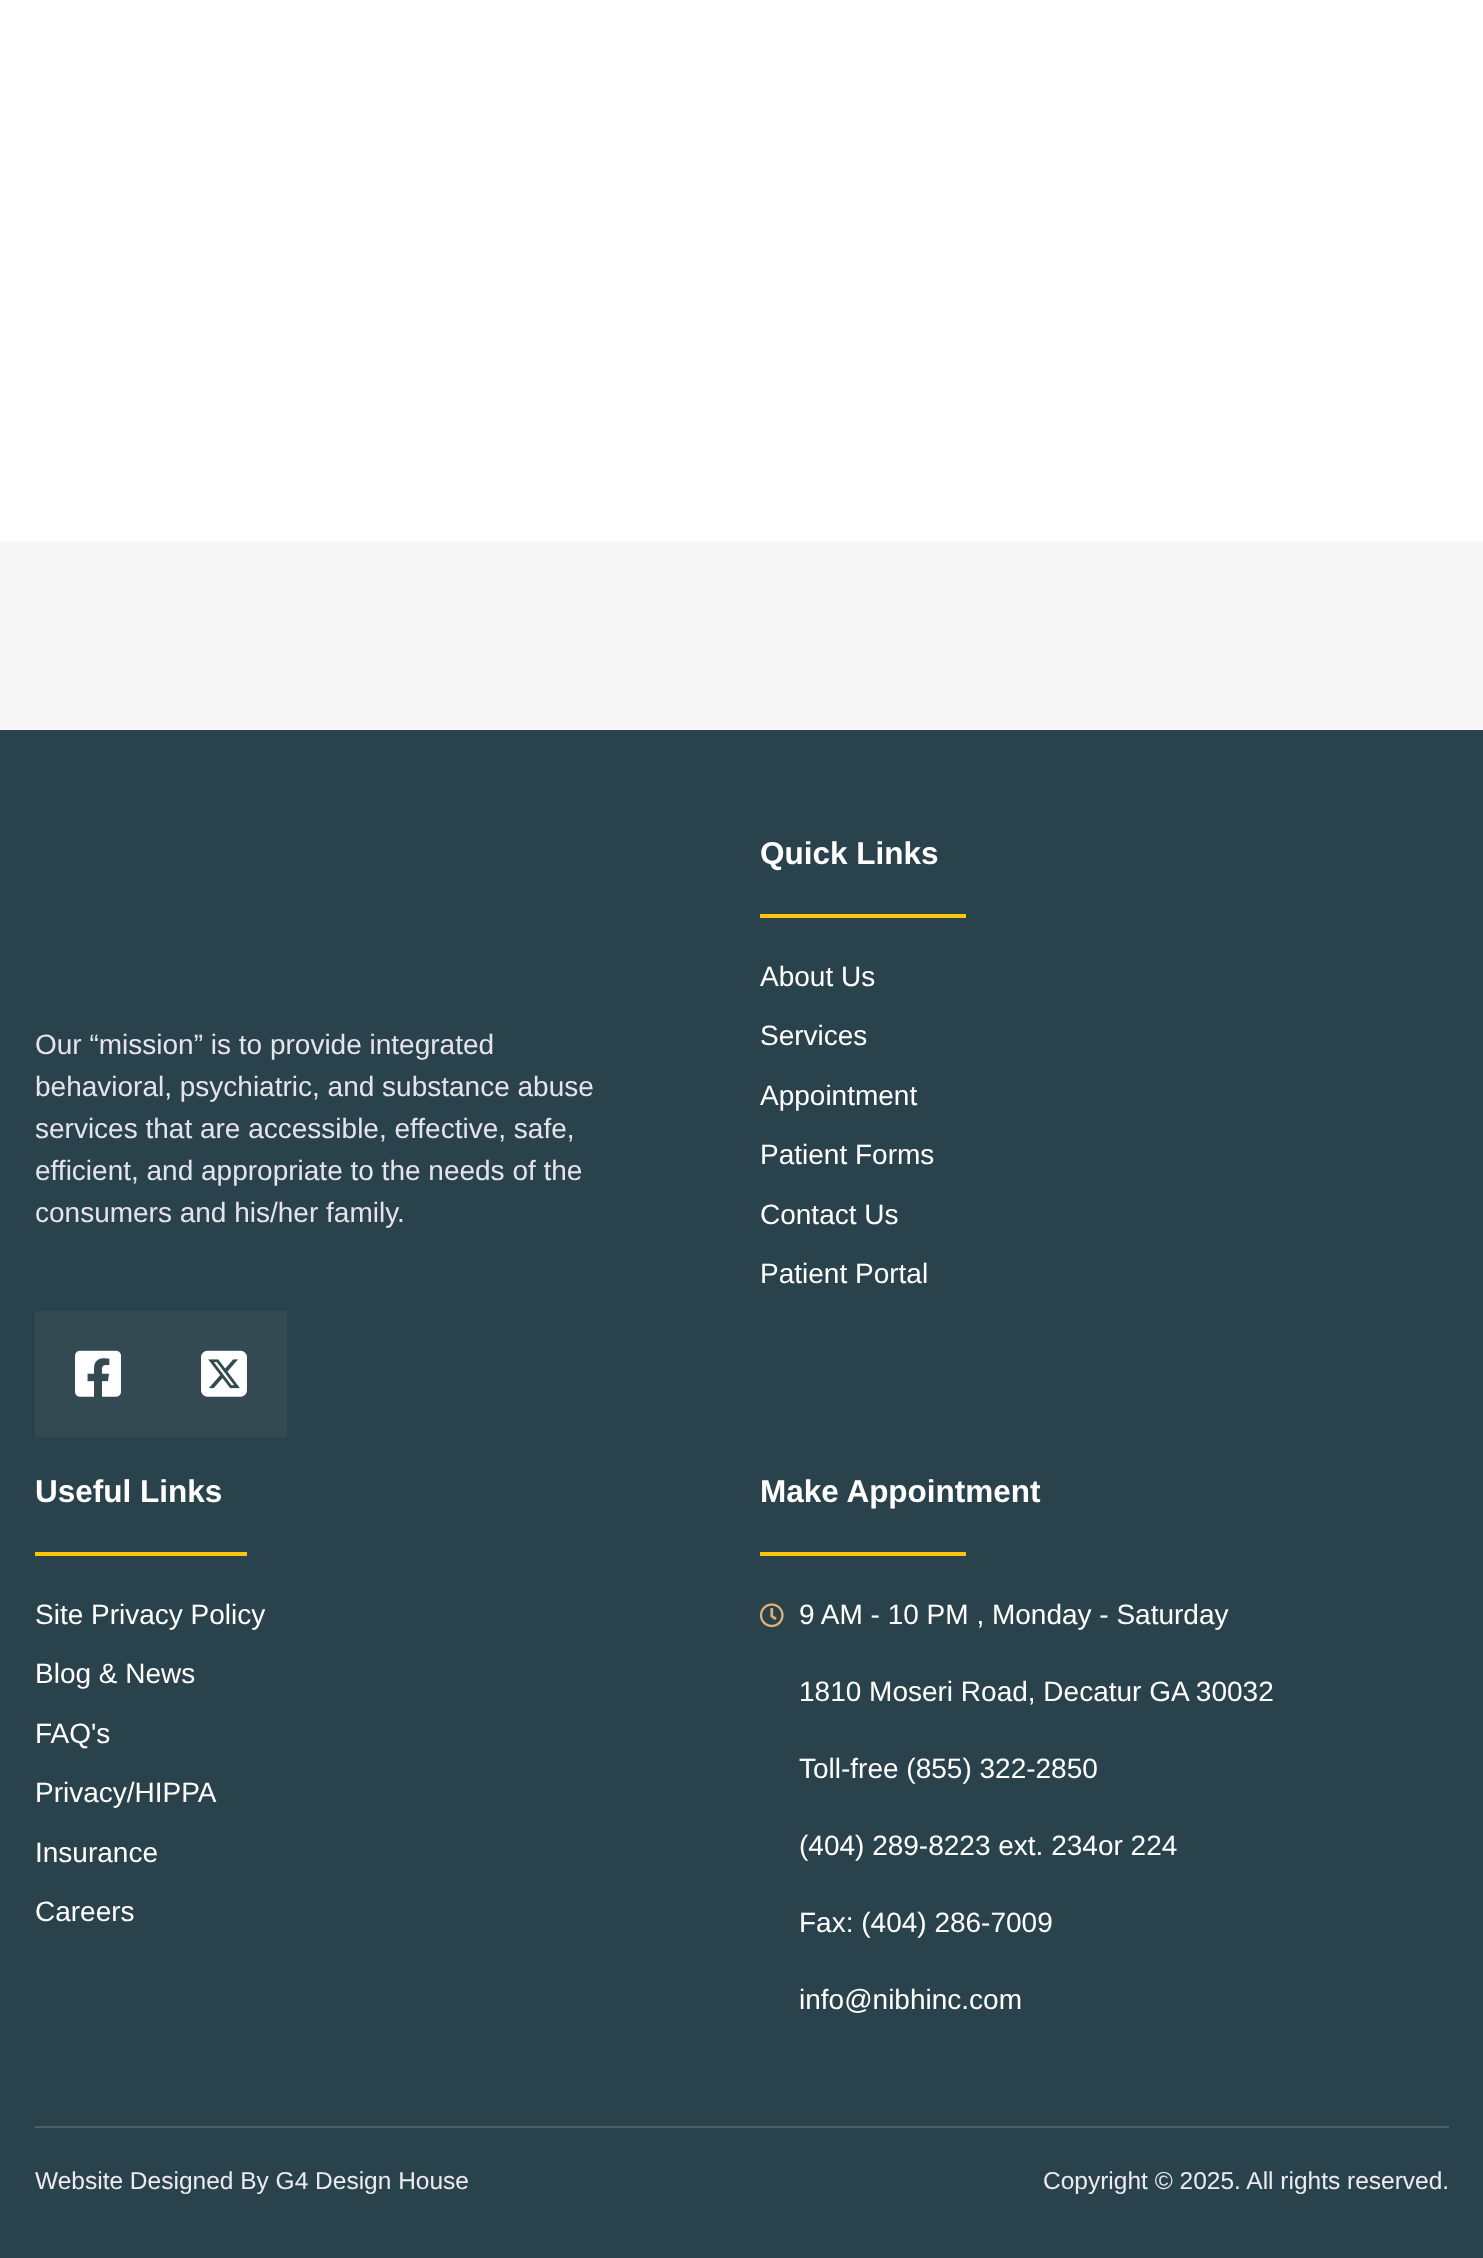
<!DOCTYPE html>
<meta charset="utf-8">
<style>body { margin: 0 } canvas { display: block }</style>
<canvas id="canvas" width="1483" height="2258"></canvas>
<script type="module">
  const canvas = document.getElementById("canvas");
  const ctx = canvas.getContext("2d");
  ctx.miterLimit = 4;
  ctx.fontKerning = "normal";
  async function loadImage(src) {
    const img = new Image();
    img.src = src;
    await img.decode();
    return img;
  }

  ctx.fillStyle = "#ffffff";
  ctx.fillRect(0, 0, 1483, 2258);
  ctx.fillStyle = "#f7f7f7";
  ctx.fillRect(0, 541, 1483, 189);
  ctx.fillStyle = "#2a424b";
  ctx.fillRect(0, 730, 1483, 1528);
  ctx.font = "28px Liberation Sans";
  ctx.fillStyle = "#e5e4ec";
  ctx.fillText("Our “mission” is to provide integrated", 35, 1054);
  ctx.fillText("behavioral, psychiatric, and substance abuse", 35, 1096);
  ctx.fillText("services that are accessible, effective, safe,", 35, 1138);
  ctx.fillText("efficient, and appropriate to the needs of the", 35, 1180);
  ctx.fillText("consumers and his/her family.", 35, 1222);
  ctx.fillStyle = "#344a53";
  ctx.fillRect(35, 1311, 252, 126);
  ctx.drawImage(await loadImage("img1.png"), 75, 1350, 46, 47);
  ctx.drawImage(await loadImage("img2.png"), 201, 1350, 46, 47);
  ctx.font = "bold 31.5px Liberation Sans";
  ctx.fillStyle = "#ffffff";
  ctx.fillText("Quick Links", 760, 864);
  ctx.fillStyle = "#fdc60c";
  ctx.fillRect(760, 914, 206, 4);
  ctx.font = "28px Liberation Sans";
  ctx.fillStyle = "#ffffff";
  ctx.fillText("About Us", 760, 986);
  ctx.fillText("Services", 760, 1045);
  ctx.fillText("Appointment", 760, 1105);
  ctx.fillText("Patient Forms", 760, 1164);
  ctx.fillText("Contact Us", 760, 1224);
  ctx.fillText("Patient Portal", 760, 1283);
  ctx.font = "bold 31.5px Liberation Sans";
  ctx.fillText("Useful Links", 35, 1502);
  ctx.fillStyle = "#fdc60c";
  ctx.fillRect(35, 1552, 212, 4);
  ctx.font = "28px Liberation Sans";
  ctx.fillStyle = "#ffffff";
  ctx.fillText("Site Privacy Policy", 35, 1624);
  ctx.fillText("Blog & News", 35, 1683);
  ctx.fillText("FAQ's", 35, 1743);
  ctx.fillText("Privacy/HIPPA", 35, 1802);
  ctx.fillText("Insurance", 35, 1862);
  ctx.fillText("Careers", 35, 1921);
  ctx.font = "bold 31.5px Liberation Sans";
  ctx.fillText("Make Appointment", 760, 1502);
  ctx.fillStyle = "#fdc60c";
  ctx.fillRect(760, 1552, 206, 4);
  ctx.drawImage(await loadImage("img3.png"), 760, 1603, 24, 25);
  ctx.font = "28px Liberation Sans";
  ctx.fillStyle = "#ffffff";
  ctx.fillText("9 AM - 10 PM , Monday - Saturday", 799, 1624);
  ctx.fillText("1810 Moseri Road, Decatur GA 30032", 799, 1701);
  ctx.fillText("Toll-free (855) 322-2850", 799, 1778);
  ctx.fillText("(404) 289-8223 ext. 234or 224", 799, 1855);
  ctx.fillText("Fax: (404) 286-7009", 799, 1932);
  ctx.fillText("info@nibhinc.com", 799, 2009);
  ctx.fillStyle = "#4c6068";
  ctx.fillRect(35, 2126, 1414, 2);
  ctx.font = "24.5px Liberation Sans";
  ctx.fillStyle = "#ecebf1";
  ctx.fillText("Website Designed By G4 Design House", 35, 2189);
  ctx.fillText("Copyright © 2025. All rights reserved.", 1043, 2189);
</script>
